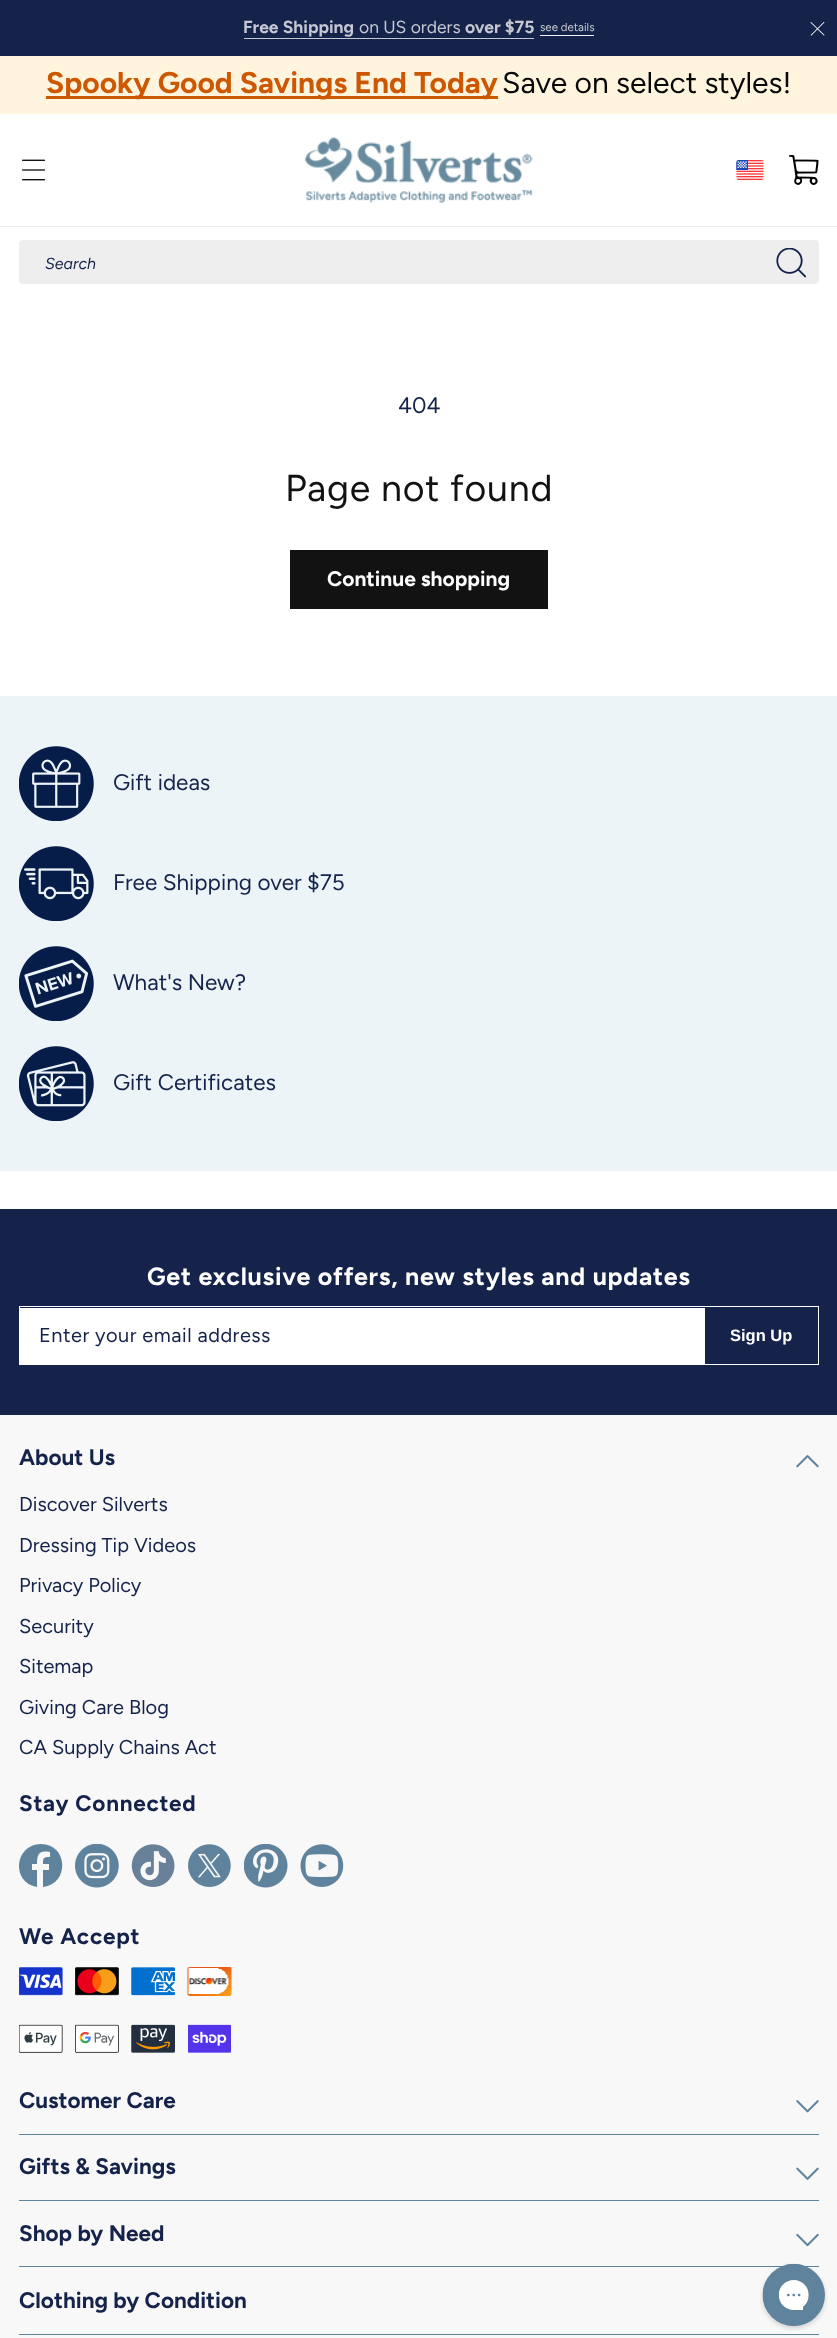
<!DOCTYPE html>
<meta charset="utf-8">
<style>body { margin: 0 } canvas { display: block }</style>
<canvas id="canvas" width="837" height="2338"></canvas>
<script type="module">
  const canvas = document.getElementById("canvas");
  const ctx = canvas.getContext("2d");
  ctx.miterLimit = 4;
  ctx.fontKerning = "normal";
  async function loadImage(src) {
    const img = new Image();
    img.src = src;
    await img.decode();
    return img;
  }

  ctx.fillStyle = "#ffffff";
  ctx.fillRect(0, 0, 837, 2338);
  ctx.fillStyle = "#15234a";
  ctx.fillRect(0, 0, 837, 56);
  ctx.font = "bold 17.5px Figtree";
  ctx.fillStyle = "#c5c8d2";
  ctx.fillText("Free Shipping", 243, 33);
  ctx.fillRect(244, 38, 290, 1);
  ctx.font = "17.5px Figtree";
  ctx.fillText("on US orders", 359, 33);
  ctx.font = "bold 17.5px Figtree";
  ctx.fillText("over $75", 465, 33);
  ctx.font = "11.5px Figtree";
  ctx.fillText("see details", 540, 31);
  ctx.fillStyle = "#f1f1f4";
  ctx.fillRect(540, 35, 54, 1);
  ctx.drawImage(await loadImage("img1.png"), 810, 22, 15, 14);
  ctx.fillStyle = "#fff5de";
  ctx.fillRect(0, 56, 837, 58);
  ctx.fillStyle = "#cc5803";
  ctx.fillRect(46, 96, 452, 3);
  ctx.font = "bold 30px Figtree";
  ctx.fillText("Spooky Good Savings End Today", 46, 93);
  ctx.font = "30px Figtree";
  ctx.fillStyle = "#080808";
  ctx.fillText("Save on select styles!", 502, 93);
  ctx.fillStyle = "#ececec";
  ctx.fillRect(0, 226, 837, 1);
  ctx.drawImage(await loadImage("img2.png"), 22, 159, 24, 22);
  ctx.drawImage(await loadImage("img3.png"), 304, 137, 229, 66);
  ctx.drawImage(await loadImage("img4.png"), 736, 160, 28, 20);
  ctx.drawImage(await loadImage("img5.png"), 789, 155, 30, 30);
  ctx.fillStyle = "#eeeeee";
  ctx.beginPath();
  ctx.roundRect(19, 240, 800, 44, 4);
  ctx.fill();
  ctx.font = "italic 16px Figtree";
  ctx.fillStyle = "#15234a";
  ctx.fillText("Search", 45, 269);
  ctx.drawImage(await loadImage("img6.png"), 776, 248, 30, 30);
  ctx.font = "22.5px Figtree";
  ctx.fillText("404", 398, 413);
  ctx.letterSpacing = "0.75px";
  ctx.font = "37.5px Figtree";
  ctx.fillStyle = "#121212";
  ctx.fillText("Page not found", 285, 501);
  ctx.fillRect(290, 550, 258, 59);
  ctx.letterSpacing = "0px";
  ctx.font = "bold 21px Figtree";
  ctx.fillStyle = "#ffffff";
  ctx.fillText("Continue shopping", 327, 586);
  ctx.fillStyle = "#ecf4f8";
  ctx.fillRect(0, 696, 837, 475);
  ctx.drawImage(await loadImage("img7.png"), 19, 746, 75, 75);
  ctx.font = "22.5px Figtree";
  ctx.fillStyle = "#15234a";
  ctx.fillText("Gift ideas", 113, 790);
  ctx.drawImage(await loadImage("img8.png"), 19, 846, 75, 75);
  ctx.fillText("Free Shipping over $75", 113, 890);
  ctx.drawImage(await loadImage("img9.png"), 19, 946, 75, 75);
  ctx.fillText("What's New?", 113, 990);
  ctx.drawImage(await loadImage("img10.png"), 19, 1046, 75, 75);
  ctx.fillText("Gift Certificates", 113, 1090);
  ctx.fillStyle = "#f8f8f8";
  ctx.fillRect(0, 1415, 837, 923);
  ctx.fillStyle = "#15234a";
  ctx.fillRect(0, 1209, 837, 206);
  ctx.letterSpacing = "0.75px";
  ctx.font = "bold 25px Figtree";
  ctx.fillStyle = "#ffffff";
  ctx.fillText("Get exclusive offers, new styles and updates", 147, 1285);
  ctx.strokeStyle = "#ffffff";
  ctx.strokeRect(19.5, 1306.5, 799, 58);
  ctx.fillRect(20, 1308, 685, 56);
  ctx.letterSpacing = "0.5px";
  ctx.font = "20px Figtree";
  ctx.fillStyle = "#15234a";
  ctx.fillText("Enter your email address", 39, 1342);
  ctx.letterSpacing = "0px";
  ctx.font = "bold 16.5px Liberation Sans";
  ctx.fillStyle = "#ffffff";
  ctx.fillText("Sign Up", 730, 1341);
  ctx.font = "bold 22.5px Figtree";
  ctx.fillStyle = "#15234a";
  ctx.fillText("About Us", 19, 1465);
  ctx.drawImage(await loadImage("img11.png"), 796, 1455, 23, 13);
  ctx.font = "20px Figtree";
  ctx.fillText("Discover Silverts", 19, 1511);
  ctx.fillText("Dressing Tip Videos", 19, 1552);
  ctx.fillText("Privacy Policy", 19, 1592);
  ctx.fillText("Security", 19, 1633);
  ctx.fillText("Sitemap", 19, 1673);
  ctx.fillText("Giving Care Blog", 19, 1714);
  ctx.fillText("CA Supply Chains Act", 19, 1754);
  ctx.letterSpacing = "0.75px";
  ctx.font = "bold 22.5px Figtree";
  ctx.fillText("Stay Connected", 19, 1811);
  ctx.fillStyle = "#5f839c";
  ctx.beginPath();
  ctx.moveTo(41, 1844);
  ctx.bezierCurveTo(14, 1844, 11, 1883, 37, 1887);
  ctx.lineTo(37, 1870);
  ctx.lineTo(32, 1870);
  ctx.lineTo(32, 1864);
  ctx.lineTo(37, 1864);
  ctx.bezierCurveTo(37, 1854, 39, 1850, 50, 1852);
  ctx.lineTo(50, 1857);
  ctx.bezierCurveTo(43, 1857, 43, 1858, 43, 1864);
  ctx.lineTo(49, 1864);
  ctx.lineTo(49, 1870);
  ctx.lineTo(43, 1870);
  ctx.lineTo(43, 1887);
  ctx.bezierCurveTo(70, 1884, 68, 1844, 41, 1844);
  ctx.closePath();
  ctx.fill();
  ctx.drawImage(await loadImage("img12.png"), 75, 1844, 44, 44);
  ctx.drawImage(await loadImage("img13.png"), 131, 1844, 44, 43);
  ctx.drawImage(await loadImage("img14.png"), 188, 1844, 43, 43);
  ctx.drawImage(await loadImage("img15.png"), 244, 1844, 44, 44);
  ctx.drawImage(await loadImage("img16.png"), 300, 1844, 44, 43);
  ctx.fillStyle = "#15234a";
  ctx.fillText("We Accept", 19, 1944);
  ctx.drawImage(await loadImage("img17.png"), 19, 1967, 44, 29);
  ctx.drawImage(await loadImage("img18.png"), 75, 1967, 44, 29);
  ctx.drawImage(await loadImage("img19.png"), 131, 1967, 44, 29);
  ctx.drawImage(await loadImage("img20.png"), 187, 1967, 45, 29);
  ctx.drawImage(await loadImage("img21.png"), 19, 2024, 44, 29);
  ctx.drawImage(await loadImage("img22.png"), 75, 2024, 44, 29);
  ctx.drawImage(await loadImage("img23.png"), 131, 2024, 44, 29);
  ctx.drawImage(await loadImage("img24.png"), 188, 2024, 43, 29);
  ctx.fillStyle = "#5f839c";
  ctx.fillRect(19, 2134, 800, 1);
  ctx.letterSpacing = "0px";
  ctx.fillStyle = "#15234a";
  ctx.fillText("Customer Care", 19, 2108);
  ctx.drawImage(await loadImage("img25.png"), 796, 2100, 23, 13);
  ctx.fillStyle = "#5f839c";
  ctx.fillRect(19, 2200, 800, 1);
  ctx.fillStyle = "#15234a";
  ctx.fillText("Gifts & Savings", 19, 2174);
  ctx.drawImage(await loadImage("img26.png"), 796, 2167, 23, 13);
  ctx.fillStyle = "#5f839c";
  ctx.fillRect(19, 2266, 800, 1);
  ctx.fillStyle = "#15234a";
  ctx.fillText("Shop by Need", 19, 2241);
  ctx.drawImage(await loadImage("img27.png"), 796, 2233, 23, 14);
  ctx.fillStyle = "#5f839c";
  ctx.fillRect(19, 2334, 800, 1);
  ctx.fillStyle = "#15234a";
  ctx.fillText("Clothing by Condition", 19, 2308);
  ctx.drawImage(await loadImage("img28.png"), 760, 2263, 68, 68);
</script>
